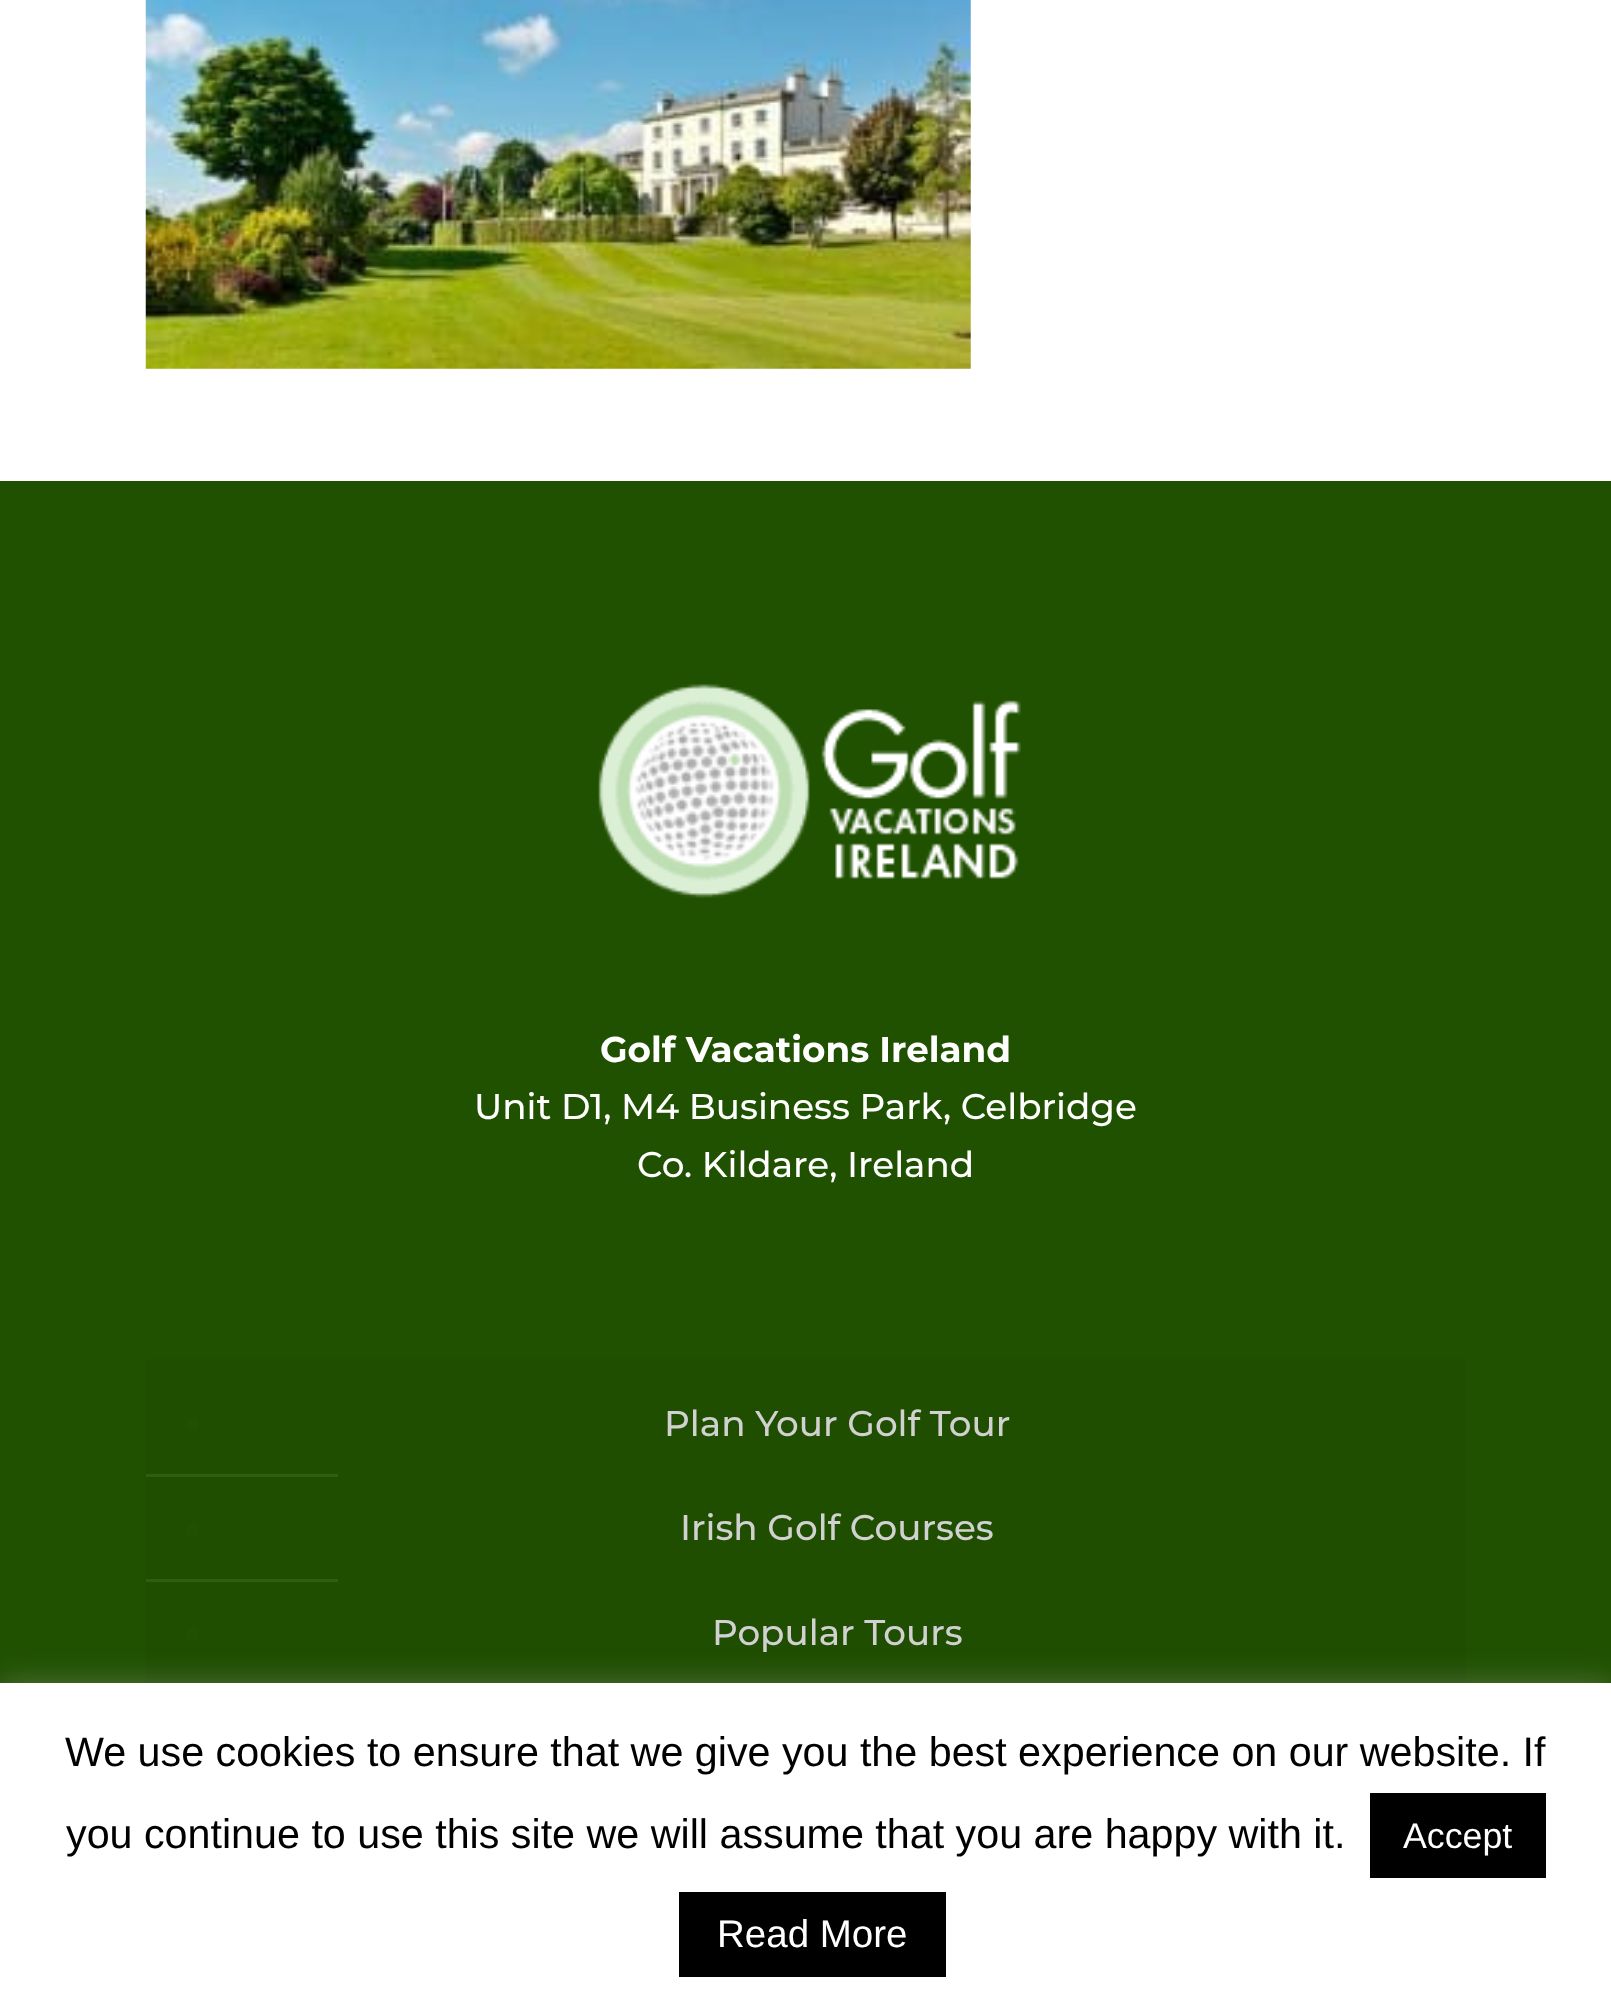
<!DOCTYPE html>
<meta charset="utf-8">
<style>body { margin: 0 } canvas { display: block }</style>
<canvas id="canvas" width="1611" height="2009"></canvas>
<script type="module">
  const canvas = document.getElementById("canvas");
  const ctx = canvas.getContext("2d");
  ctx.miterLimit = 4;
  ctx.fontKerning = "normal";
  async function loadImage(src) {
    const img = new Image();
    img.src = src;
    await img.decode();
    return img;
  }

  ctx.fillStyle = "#ffffff";
  ctx.fillRect(0, 0, 1611, 2009);
  ctx.drawImage(await loadImage("img1.png"), 145, 0, 826, 369);
  ctx.fillStyle = "#205100";
  ctx.fillRect(0, 481, 1611, 1202);
  ctx.drawImage(await loadImage("img2.png"), 598, 684, 423, 215);
  ctx.font = "bold 35.75px Montserrat";
  ctx.fillStyle = "#ffffff";
  ctx.fillText("Golf Vacations Ireland", 600, 1062);
  ctx.font = "500 35.75px Montserrat";
  ctx.fillText("Unit D1, M4 Business Park, Celbridge", 474, 1119);
  ctx.fillText("Co. Kildare, Ireland", 637, 1177);
  ctx.fillStyle = "#1f4e00";
  ctx.fillRect(146, 1359, 1320, 324);
  ctx.fillStyle = "#205100";
  ctx.fillRect(187, 1419, 11, 11);
  ctx.fillStyle = "#d1d1d1";
  ctx.fillText("Plan Your Golf Tour", 664, 1436);
  ctx.fillStyle = "#315c14";
  ctx.fillRect(146, 1474, 192, 3);
  ctx.fillStyle = "#205100";
  ctx.fillRect(187, 1524, 11, 11);
  ctx.fillStyle = "#d1d1d1";
  ctx.fillText("Irish Golf Courses", 680, 1540);
  ctx.fillStyle = "#315c14";
  ctx.fillRect(146, 1579, 192, 3);
  ctx.fillStyle = "#205100";
  ctx.fillRect(187, 1628, 11, 11);
  ctx.fillStyle = "#d1d1d1";
  ctx.fillText("Popular Tours", 712, 1645);
  ctx.fillStyle = "rgba(172, 171, 171, 0.3)";
  ctx.filter = "blur(14px)";
  ctx.beginPath();
  ctx.rect(0, 1680, 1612, 328);
  ctx.fill();
  ctx.filter = "none";
  ctx.fillStyle = "#ffffff";
  ctx.fillRect(0, 1683, 1611, 326);
  ctx.font = "41.25px Liberation Sans";
  ctx.fillStyle = "#000000";
  ctx.fillText("We use cookies to ensure that we give you the best experience on our website. If", 65, 1766);
  ctx.fillText("you continue to use this site we will assume that you are happy with it.", 66, 1848);
  ctx.fillRect(1370, 1793, 176, 85);
  ctx.font = "35.75px Liberation Sans";
  ctx.fillStyle = "#ffffff";
  ctx.fillText("Accept", 1403, 1848);
  ctx.fillStyle = "#000000";
  ctx.fillRect(679, 1892, 267, 85);
  ctx.font = "38.5px Liberation Sans";
  ctx.fillStyle = "#ffffff";
  ctx.fillText("Read More", 717, 1947);
</script>
